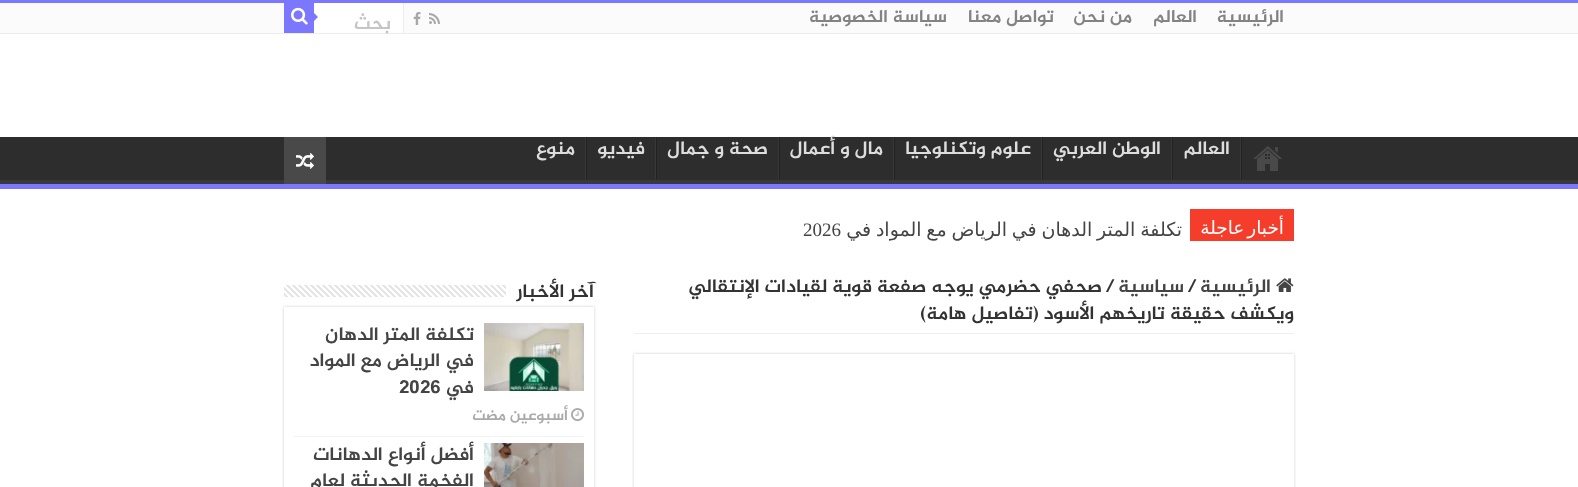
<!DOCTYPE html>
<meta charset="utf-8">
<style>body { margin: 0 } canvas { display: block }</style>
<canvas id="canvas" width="1578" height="487"></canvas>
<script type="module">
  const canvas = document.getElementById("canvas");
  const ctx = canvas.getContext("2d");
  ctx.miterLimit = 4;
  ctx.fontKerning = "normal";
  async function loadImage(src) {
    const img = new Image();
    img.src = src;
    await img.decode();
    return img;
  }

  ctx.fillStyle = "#ffffff";
  ctx.fillRect(0, 0, 1578, 487);
  ctx.fillStyle = "#7b77ff";
  ctx.fillRect(0, 0, 1578, 3);
  ctx.fillStyle = "#fbfbfb";
  ctx.fillRect(0, 3, 1578, 30);
  ctx.fillStyle = "#ececec";
  ctx.fillRect(0, 33, 1578, 1);
  ctx.direction = "rtl";
  ctx.font = "bold 18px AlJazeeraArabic";
  ctx.fillStyle = "#838383";
  ctx.fillText("الرئيسية", 1284, 22);
  ctx.fillText("العالم", 1197, 22);
  ctx.fillText("من نحن", 1132, 22);
  ctx.fillText("تواصل معنا", 1054, 22);
  ctx.fillText("سياسة الخصوصية", 947, 22);
  ctx.drawImage(await loadImage("img1.png"), 429, 13, 11, 11);
  ctx.drawImage(await loadImage("img2.png"), 413, 12, 8, 13);
  ctx.fillStyle = "#ffffff";
  ctx.fillRect(314, 3, 89, 30);
  ctx.fillStyle = "#ececec";
  ctx.fillRect(403, 3, 1, 30);
  ctx.font = "bold 19px AlJazeeraArabic";
  ctx.fillStyle = "#c5c5c5";
  ctx.fillText("بحث", 391, 29);
  ctx.fillStyle = "#7b77ff";
  ctx.fillRect(284, 3, 30, 30);
  ctx.drawImage(await loadImage("img3.png"), 291, 7, 17, 18);
  ctx.beginPath();
  ctx.moveTo(314, 21);
  ctx.lineTo(314, 13);
  ctx.lineTo(318, 17);
  ctx.closePath();
  ctx.fill();
  ctx.fillStyle = "#2d2d2d";
  ctx.fillRect(0, 137, 1578, 43);
  ctx.save();
  ctx.beginPath();
  ctx.rect(0, 137, 1578, 47);
  ctx.clip();
  ctx.fillStyle = "#393939";
  ctx.beginPath();
  ctx.moveTo(-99, 38);
  ctx.lineTo(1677, 38);
  ctx.lineTo(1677, 283);
  ctx.lineTo(-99, 283);
  ctx.closePath();
  ctx.moveTo(-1, 131);
  ctx.lineTo(1577, 131);
  ctx.bezierCurveTo(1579, 131, 1578, 139, 1578, 140);
  ctx.lineTo(1578, 180);
  ctx.lineTo(1577, 180);
  ctx.lineTo(-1, 180);
  ctx.lineTo(-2, 179);
  ctx.lineTo(-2, 131);
  ctx.closePath();
  ctx.fill("evenodd");
  ctx.restore();
  ctx.fillStyle = "#7b77ff";
  ctx.fillRect(0, 184, 1578, 5);
  ctx.drawImage(await loadImage("img4.png"), 1253, 146, 29, 25);
  ctx.fillStyle = "#222222";
  ctx.fillRect(1241, 137, 1, 42);
  ctx.fillStyle = "#383838";
  ctx.fillRect(1240, 137, 1, 42);
  ctx.fillStyle = "#dddddd";
  ctx.fillText("العالم", 1230, 154);
  ctx.fillStyle = "#222222";
  ctx.fillRect(1172, 137, 1, 42);
  ctx.fillStyle = "#383838";
  ctx.fillRect(1171, 137, 1, 42);
  ctx.fillStyle = "#dddddd";
  ctx.fillText("الوطن العربي", 1161, 154);
  ctx.fillStyle = "#222222";
  ctx.fillRect(1042, 137, 1, 42);
  ctx.fillStyle = "#383838";
  ctx.fillRect(1041, 137, 1, 42);
  ctx.fillStyle = "#dddddd";
  ctx.fillText("علوم وتكنلوجيا", 1031, 154);
  ctx.fillStyle = "#222222";
  ctx.fillRect(894, 137, 1, 42);
  ctx.fillStyle = "#383838";
  ctx.fillRect(893, 137, 1, 42);
  ctx.fillStyle = "#dddddd";
  ctx.fillText("مال و أعمال", 883, 154);
  ctx.fillStyle = "#222222";
  ctx.fillRect(779, 137, 1, 42);
  ctx.fillStyle = "#383838";
  ctx.fillRect(778, 137, 1, 42);
  ctx.fillStyle = "#dddddd";
  ctx.fillText("صحة و جمال", 768, 154);
  ctx.fillStyle = "#222222";
  ctx.fillRect(656, 137, 1, 42);
  ctx.fillStyle = "#383838";
  ctx.fillRect(655, 137, 1, 42);
  ctx.fillStyle = "#dddddd";
  ctx.fillText("فيديو", 645, 154);
  ctx.fillStyle = "#222222";
  ctx.fillRect(586, 137, 1, 42);
  ctx.fillStyle = "#383838";
  ctx.fillRect(585, 137, 1, 42);
  ctx.fillStyle = "#dddddd";
  ctx.fillText("منوع", 575, 154);
  ctx.fillStyle = "#494949";
  ctx.fillRect(284, 137, 42, 47);
  ctx.drawImage(await loadImage("img5.png"), 296, 152, 18, 17);
  ctx.fillStyle = "#f43d2a";
  ctx.fillRect(1190, 209, 104, 32);
  ctx.wordSpacing = "-3px";
  ctx.font = "18.5px DejaVu Sans";
  ctx.fillStyle = "#ffffff";
  ctx.fillText("أخبار عاجلة", 1284, 234);
  ctx.wordSpacing = "-1.25px";
  ctx.font = "19px DejaVu Sans";
  ctx.fillStyle = "#444444";
  ctx.fillText("تكلفة المتر الدهان في الرياض مع المواد في", 1182, 236);
  ctx.wordSpacing = "0px";
  ctx.direction = "ltr";
  ctx.font = "19px Liberation Serif";
  ctx.fillText("2026", 803, 236);
  ctx.fillStyle = "#eeeeee";
  ctx.fillRect(634, 333, 660, 1);
  ctx.drawImage(await loadImage("img6.png"), 1276, 278, 18, 14);
  ctx.direction = "rtl";
  ctx.font = "bold 19px AlJazeeraArabic";
  ctx.fillStyle = "#444444";
  ctx.fillText("الرئيسية", 1271, 292);
  ctx.direction = "ltr";
  ctx.fillStyle = "#333333";
  ctx.fillText("/", 1187, 292);
  ctx.direction = "rtl";
  ctx.fillStyle = "#444444";
  ctx.fillText("سياسية", 1184, 292);
  ctx.direction = "ltr";
  ctx.fillStyle = "#333333";
  ctx.fillText("/", 1105, 292);
  ctx.direction = "rtl";
  ctx.fillText("صحفي حضرمي يوجه صفعة قوية لقيادات الإنتقالي", 1102, 292);
  ctx.fillText("ويكشف حقيقة تاريخهم الأسود (تفاصيل هامة)", 1294, 319);
  ctx.save();
  ctx.beginPath();
  ctx.moveTo(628, 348);
  ctx.lineTo(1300, 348);
  ctx.lineTo(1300, 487);
  ctx.lineTo(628, 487);
  ctx.closePath();
  ctx.moveTo(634, 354);
  ctx.lineTo(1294, 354);
  ctx.lineTo(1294, 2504);
  ctx.lineTo(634, 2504);
  ctx.closePath();
  ctx.clip("evenodd");
  ctx.fillStyle = "#cacaca";
  ctx.filter = "blur(1.5px)";
  ctx.beginPath();
  ctx.rect(634, 354, 660, 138);
  ctx.fill();
  ctx.filter = "none";
  ctx.restore();
  ctx.save();
  ctx.beginPath();
  ctx.moveTo(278, 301);
  ctx.lineTo(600, 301);
  ctx.lineTo(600, 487);
  ctx.lineTo(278, 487);
  ctx.closePath();
  ctx.moveTo(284, 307);
  ctx.lineTo(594, 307);
  ctx.lineTo(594, 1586);
  ctx.lineTo(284, 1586);
  ctx.closePath();
  ctx.clip("evenodd");
  ctx.fillStyle = "#cacaca";
  ctx.filter = "blur(1.5px)";
  ctx.beginPath();
  ctx.rect(284, 307, 310, 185);
  ctx.fill();
  ctx.filter = "none";
  ctx.restore();
  ctx.fillText("آخر الأخبار", 594, 297);
  ctx.drawImage(await loadImage("img7.png"), 284, 285, 222, 12);
  ctx.fillStyle = "#f2f2f2";
  ctx.fillRect(294, 436, 290, 1);
  ctx.drawImage(await loadImage("img8.png"), 484, 323, 100, 68);
  ctx.fillStyle = "#444444";
  ctx.fillText("تكلفة المتر الدهان", 474, 340);
  ctx.fillText("في الرياض مع المواد", 474, 366);
  ctx.fillText("في", 474, 393);
  ctx.direction = "ltr";
  ctx.fillText("2026", 399, 393);
  ctx.drawImage(await loadImage("img9.png"), 571, 408, 13, 14);
  ctx.direction = "rtl";
  ctx.font = "bold 15.25px AlJazeeraArabic";
  ctx.fillStyle = "#aaaaaa";
  ctx.fillText("أسبوعين مضت", 568, 420);
  ctx.drawImage(await loadImage("img10.png"), 484, 443, 100, 44);
  ctx.font = "bold 19px AlJazeeraArabic";
  ctx.fillStyle = "#444444";
  ctx.fillText("أفضل أنواع الدهانات", 474, 460);
  ctx.fillText("الفخمة الحديثة لعام", 474, 486);
</script>
